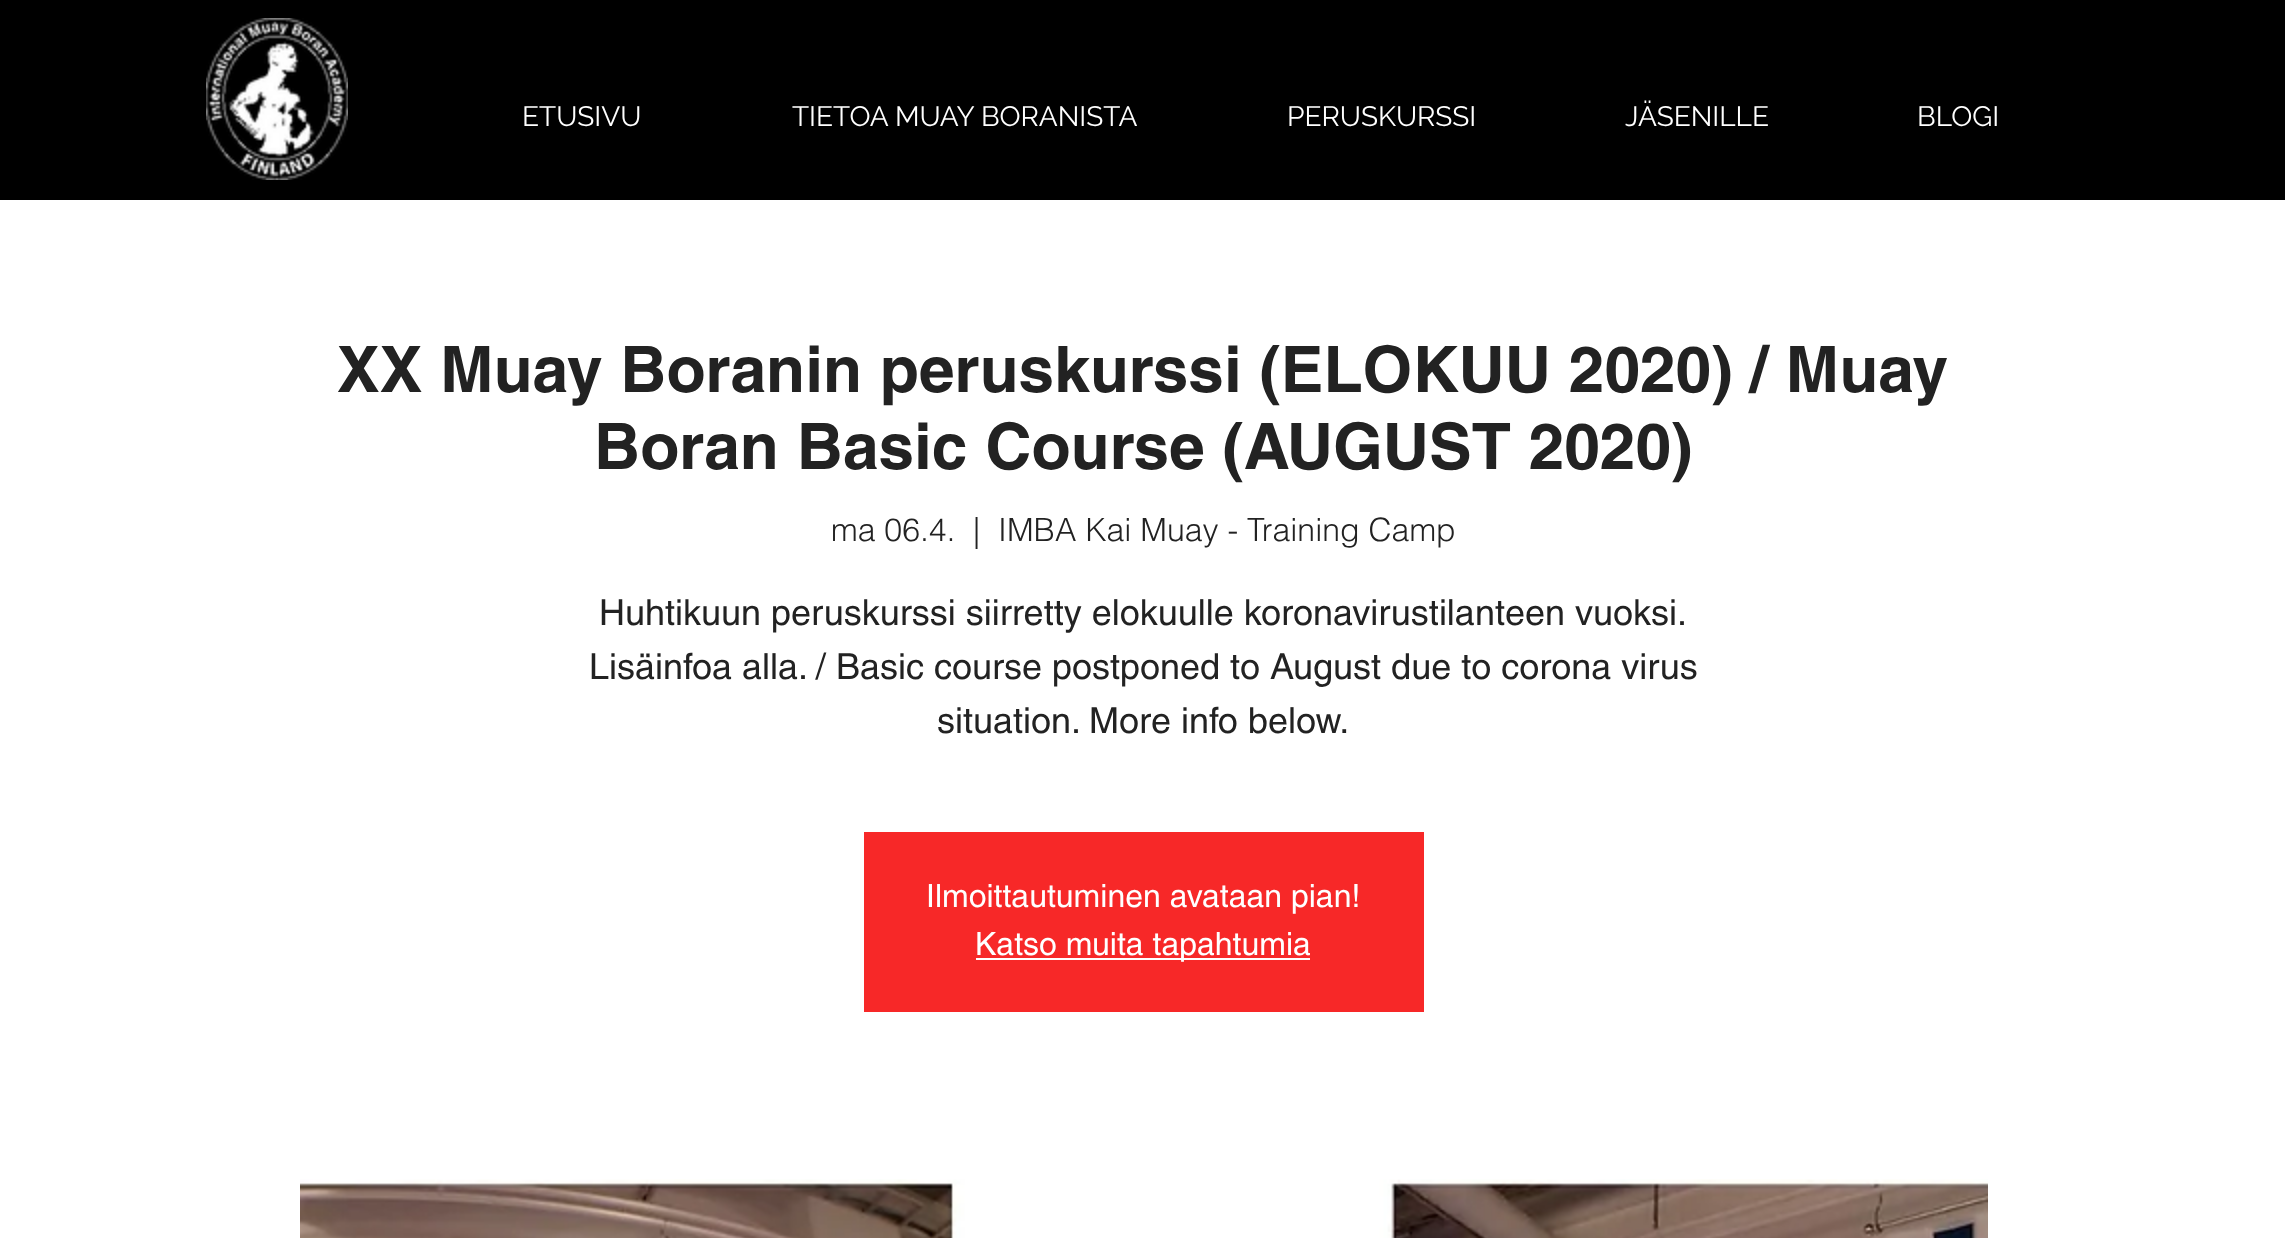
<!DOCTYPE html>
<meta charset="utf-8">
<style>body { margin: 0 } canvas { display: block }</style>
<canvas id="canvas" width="2285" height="1238"></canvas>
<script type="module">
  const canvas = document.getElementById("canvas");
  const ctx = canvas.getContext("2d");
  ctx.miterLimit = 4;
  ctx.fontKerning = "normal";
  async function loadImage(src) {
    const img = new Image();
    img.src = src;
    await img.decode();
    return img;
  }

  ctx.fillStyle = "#ffffff";
  ctx.fillRect(0, 0, 2285, 1238);
  ctx.fillStyle = "#000000";
  ctx.fillRect(0, 0, 2285, 200);
  ctx.drawImage(await loadImage("img1.png"), 206, 18, 142, 162);
  ctx.font = "28px Raleway";
  ctx.fillStyle = "#ffffff";
  ctx.fillText("ETUSIVU", 522, 126);
  ctx.fillText("TIETOA MUAY BORANISTA", 792, 126);
  ctx.fillText("PERUSKURSSI", 1287, 126);
  ctx.fillText("JÄSENILLE", 1625, 126);
  ctx.fillText("BLOGI", 1917, 126);
  ctx.font = "bold 64px helvetica";
  ctx.fillStyle = "#222222";
  ctx.fillText("XX Muay Boranin peruskurssi (ELOKUU 2020) / Muay", 337, 392);
  ctx.fillText("Boran Basic Course (AUGUST 2020)", 594, 469);
  ctx.font = "300 32px helvetica";
  ctx.fillText("ma 06.4.", 831, 541);
  ctx.fillText("|", 973, 541);
  ctx.fillText("IMBA Kai Muay - Training Camp", 998, 541);
  ctx.font = "36px helvetica";
  ctx.fillText("Huhtikuun peruskurssi siirretty elokuulle koronavirustilanteen vuoksi.", 599, 625);
  ctx.fillText("Lisäinfoa alla. / Basic course postponed to August due to corona virus", 589, 679);
  ctx.fillText("situation. More info below.", 937, 733);
  ctx.fillStyle = "#f72828";
  ctx.fillRect(864, 832, 560, 180);
  ctx.font = "32px helvetica";
  ctx.fillStyle = "#ffffff";
  ctx.fillText("Ilmoittautuminen avataan pian!", 926, 907);
  ctx.fillRect(976, 958, 334, 2);
  ctx.fillText("Katso muita tapahtumia", 975, 955);
  ctx.drawImage(await loadImage("img2.png"), 300, 1179, 1688, 59);
</script>
